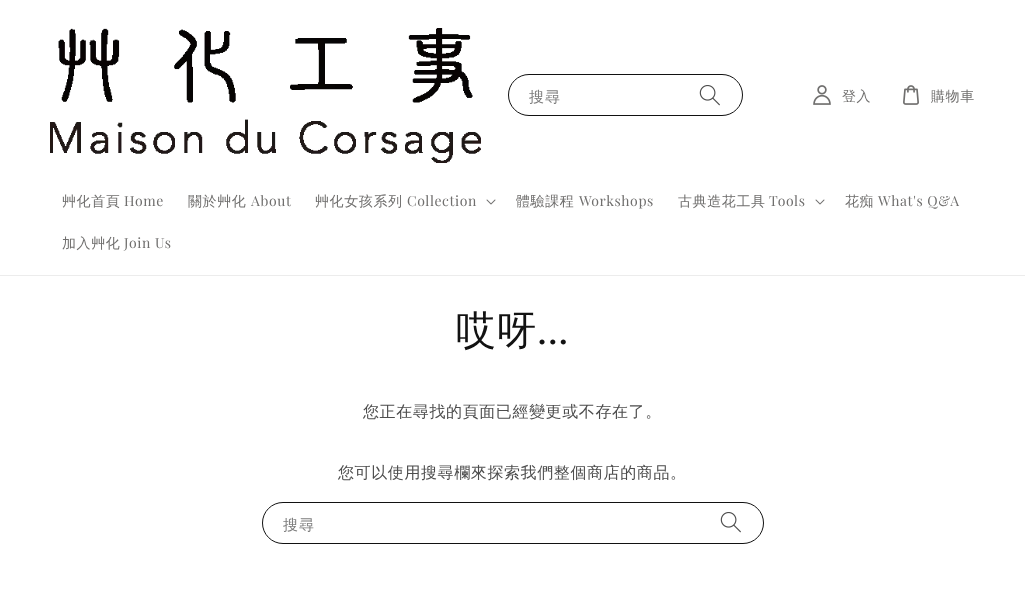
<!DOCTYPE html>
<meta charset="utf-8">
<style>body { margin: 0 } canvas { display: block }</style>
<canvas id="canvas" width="1025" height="594"></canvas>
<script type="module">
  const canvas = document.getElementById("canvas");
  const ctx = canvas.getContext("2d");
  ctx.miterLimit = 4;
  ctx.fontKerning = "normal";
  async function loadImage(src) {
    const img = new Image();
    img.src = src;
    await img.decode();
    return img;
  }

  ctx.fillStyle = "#ffffff";
  ctx.fillRect(0, 0, 1025, 594);
  ctx.fillStyle = "#ececec";
  ctx.fillRect(0, 275, 1025, 1);
  ctx.drawImage(await loadImage("img1.png"), 50, 28, 431, 135);
  ctx.beginPath();
  ctx.roundRect(508.5, 74.5, 234, 41, 20.5);
  ctx.strokeStyle = "#121212";
  ctx.stroke();
  ctx.letterSpacing = "1px";
  ctx.font = "500 15px WenQuanYi Zen Hei";
  ctx.fillStyle = "#7d7d7d";
  ctx.fillText("搜尋", 529, 102);
  ctx.drawImage(await loadImage("img2.png"), 699, 85, 21, 21);
  ctx.drawImage(await loadImage("img3.png"), 813, 85, 18, 20);
  ctx.letterSpacing = "0.6px";
  ctx.font = "500 14px WenQuanYi Zen Hei";
  ctx.fillStyle = "#706f6e";
  ctx.fillText("登入", 842, 101);
  ctx.drawImage(await loadImage("img4.png"), 903, 85, 16, 20);
  ctx.fillText("購物車", 931, 101);
  ctx.fillText("艸化首頁", 62, 206);
  ctx.font = "14px Playfair Display";
  ctx.fillText("Home", 124, 206);
  ctx.font = "500 14px WenQuanYi Zen Hei";
  ctx.fillText("關於艸化", 188, 206);
  ctx.font = "14px Playfair Display";
  ctx.fillText("About", 251, 206);
  ctx.font = "500 14px WenQuanYi Zen Hei";
  ctx.fillText("艸化女孩系列", 315, 206);
  ctx.font = "14px Playfair Display";
  ctx.fillText("Collection", 407, 206);
  ctx.drawImage(await loadImage("img5.png"), 486, 199, 10, 6);
  ctx.font = "500 14px WenQuanYi Zen Hei";
  ctx.fillText("體驗課程", 516, 206);
  ctx.font = "14px Playfair Display";
  ctx.fillText("Workshops", 579, 206);
  ctx.font = "500 14px WenQuanYi Zen Hei";
  ctx.fillText("古典造花工具", 678, 206);
  ctx.font = "14px Playfair Display";
  ctx.fillText("Tools", 769, 206);
  ctx.drawImage(await loadImage("img5.png"), 815, 199, 10, 6);
  ctx.font = "500 14px WenQuanYi Zen Hei";
  ctx.fillText("花痴", 845, 206);
  ctx.font = "14px Playfair Display";
  ctx.fillText("What's Q&A", 878, 206);
  ctx.font = "500 14px WenQuanYi Zen Hei";
  ctx.fillText("加入艸化", 62, 248);
  ctx.font = "14px Playfair Display";
  ctx.fillText("Join Us", 124, 248);
  ctx.font = "500 40px WenQuanYi Zen Hei";
  ctx.fillStyle = "#121212";
  ctx.fillText("哎呀", 456, 344);
  ctx.font = "40px Playfair Display";
  ctx.fillText("...", 537, 344);
  ctx.font = "500 16px WenQuanYi Zen Hei";
  ctx.fillStyle = "#4d4d4d";
  ctx.fillText("您正在尋找的頁面已經變更或不存在了。", 363, 417);
  ctx.fillText("您可以使用搜尋欄來探索我們整個商店的商品。", 338, 478);
  ctx.beginPath();
  ctx.roundRect(262.5, 502.5, 501, 41, 20.5);
  ctx.stroke();
  ctx.letterSpacing = "1px";
  ctx.font = "500 15px WenQuanYi Zen Hei";
  ctx.fillStyle = "#7d7d7d";
  ctx.fillText("搜尋", 283, 530);
  ctx.drawImage(await loadImage("img2.png"), 720, 512, 21, 21);
</script>
